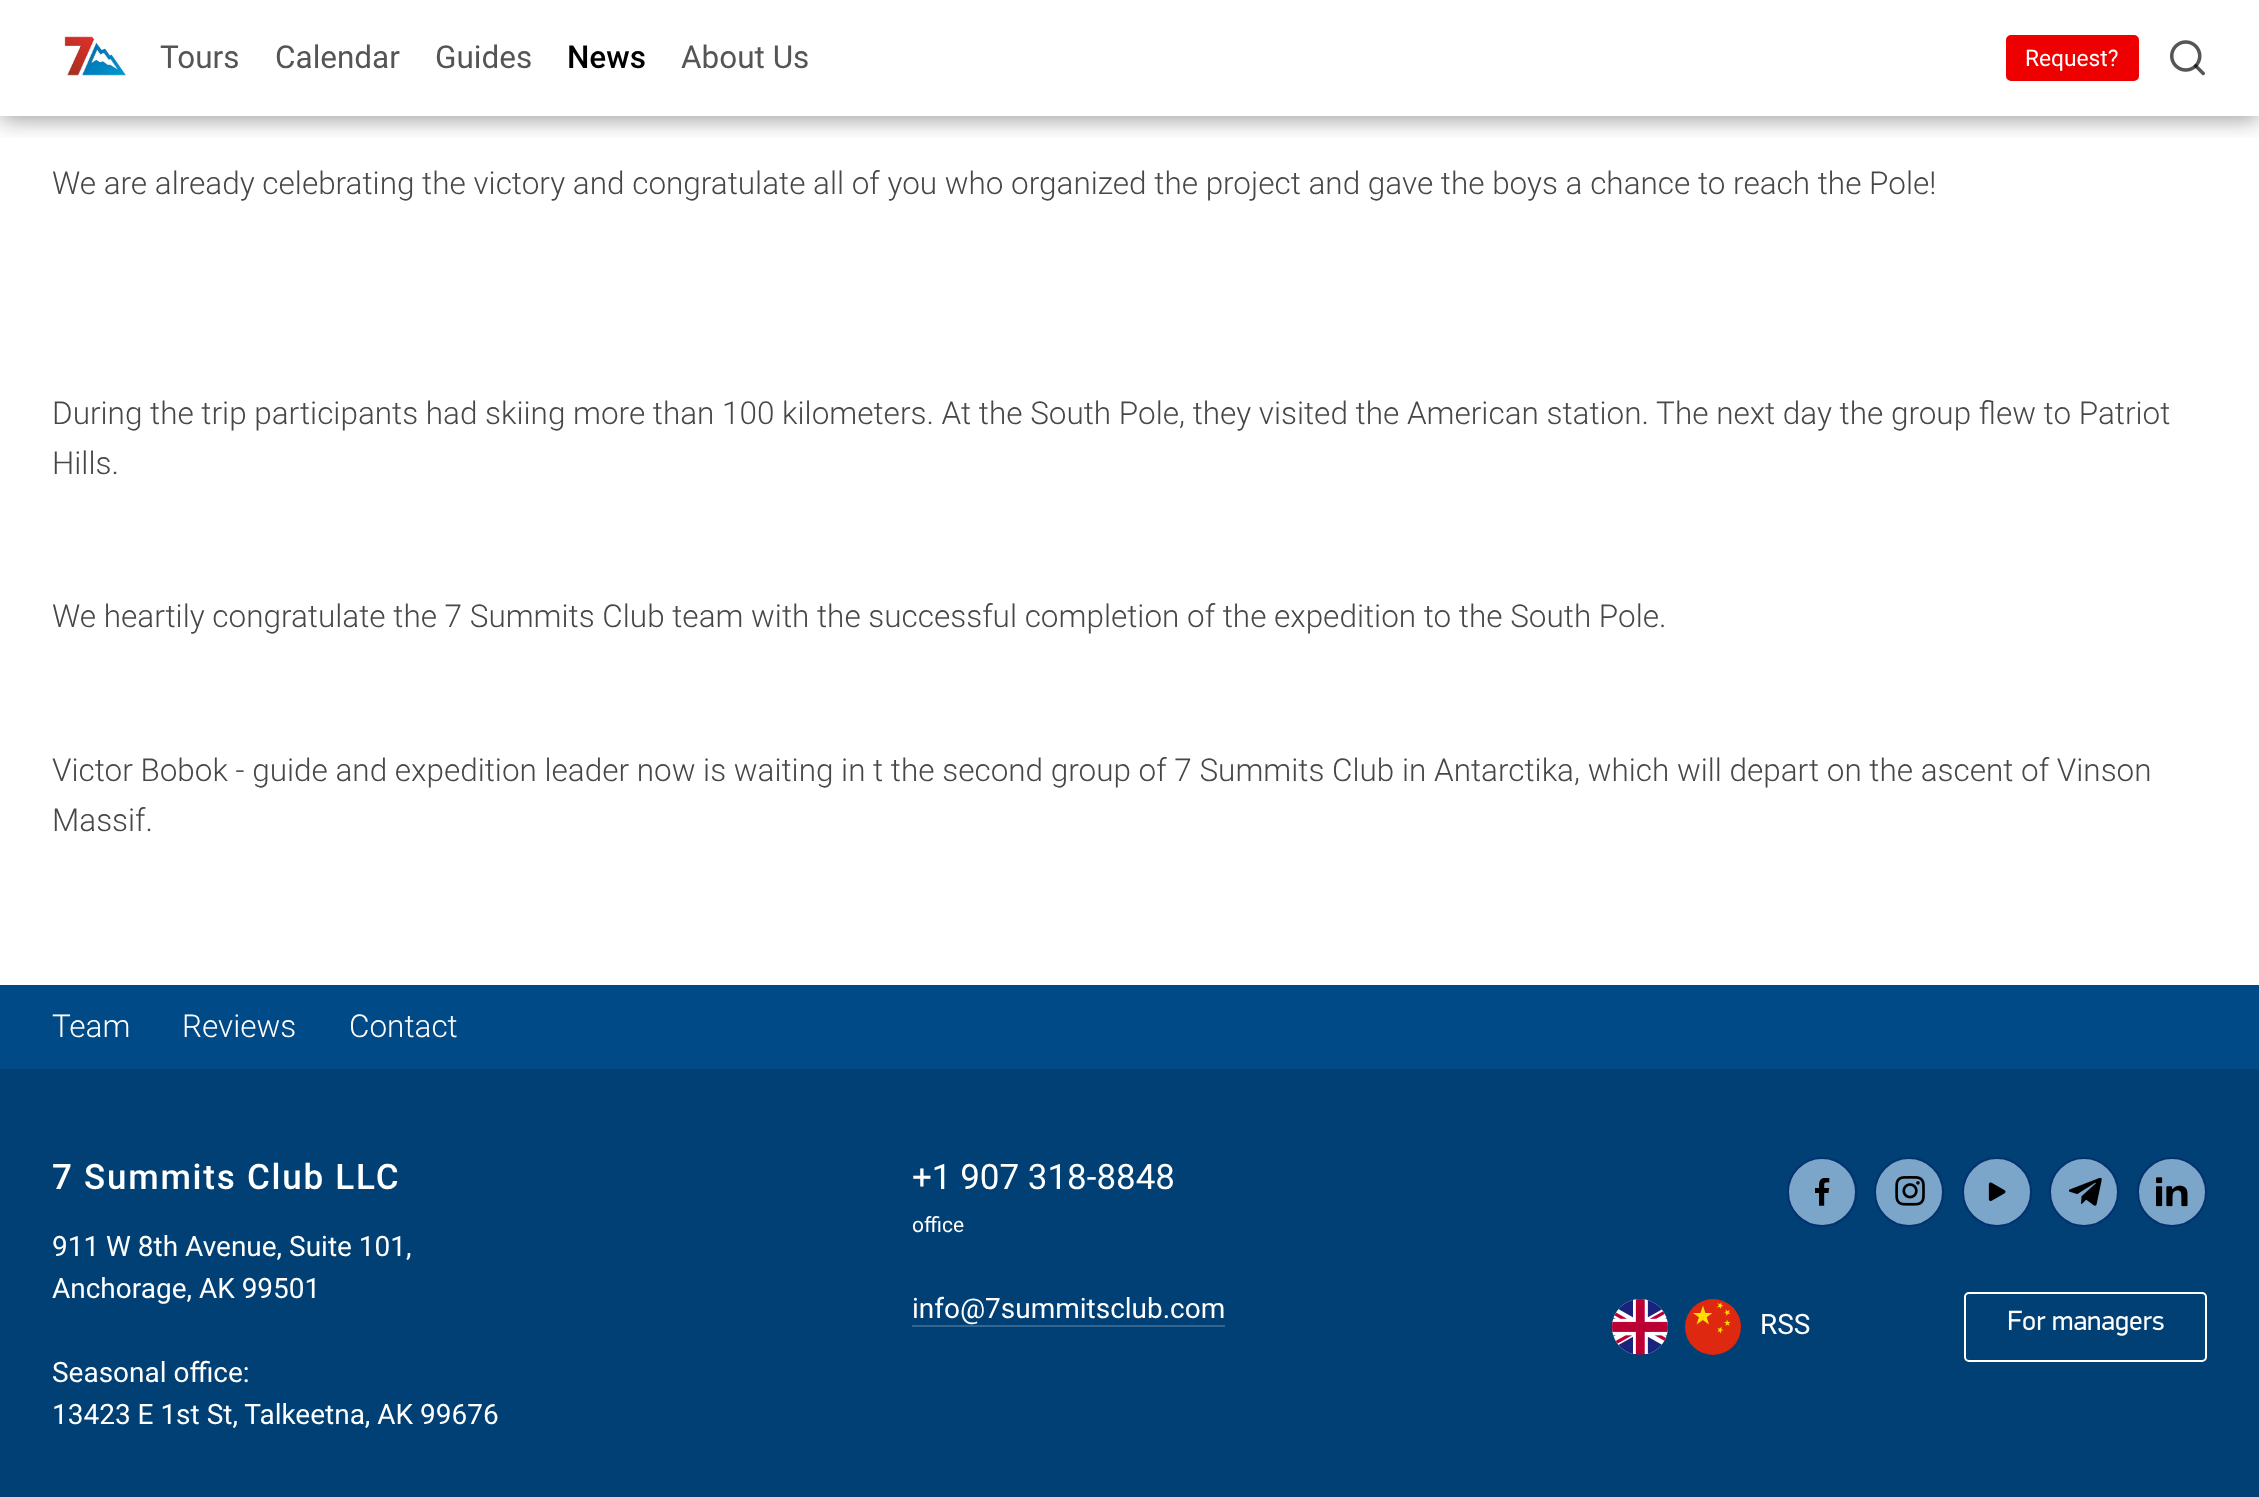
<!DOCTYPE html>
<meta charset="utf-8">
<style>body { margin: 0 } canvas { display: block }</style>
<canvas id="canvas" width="2259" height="1497"></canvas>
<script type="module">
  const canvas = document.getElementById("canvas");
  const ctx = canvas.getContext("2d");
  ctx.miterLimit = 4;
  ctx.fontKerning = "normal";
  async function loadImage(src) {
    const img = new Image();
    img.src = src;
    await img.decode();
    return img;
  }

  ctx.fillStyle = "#ffffff";
  ctx.fillRect(0, 0, 2259, 1497);
  ctx.save();
  ctx.beginPath();
  ctx.rect(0, 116, 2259, 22);
  ctx.clip();
  ctx.fillStyle = "rgba(0, 0, 0, 0.4)";
  ctx.filter = "blur(11.5px)";
  ctx.beginPath();
  ctx.rect(0, -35, 2259, 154);
  ctx.fill();
  ctx.filter = "none";
  ctx.restore();
  ctx.fillRect(0, 115, 2259, 1);
  ctx.drawImage(await loadImage("img1.png"), 64, 36, 62, 40);
  ctx.font = "31.5px Roboto";
  ctx.fillStyle = "#555555";
  ctx.fillText("Tours", 160, 68);
  ctx.fillText("Calendar", 275, 68);
  ctx.fillText("Guides", 435, 68);
  ctx.font = "500 31.5px Roboto";
  ctx.fillStyle = "#000000";
  ctx.fillText("News", 567, 68);
  ctx.font = "31.5px Roboto";
  ctx.fillStyle = "#555555";
  ctx.fillText("About Us", 681, 68);
  ctx.fillStyle = "#ee0000";
  ctx.beginPath();
  ctx.roundRect(2007, 36, 131, 44, 4);
  ctx.fill();
  ctx.strokeStyle = "#ee0000";
  ctx.lineWidth = 2;
  ctx.stroke();
  ctx.font = "22.75px Roboto";
  ctx.fillStyle = "#ffffff";
  ctx.fillText("Request?", 2025, 66);
  ctx.drawImage(await loadImage("img2.png"), 2170, 40, 35, 36);
  ctx.font = "300 31.5px Roboto";
  ctx.fillStyle = "#474747";
  ctx.fillText("We are already celebrating the victory and congratulate all of you who organized the project and gave the boys a chance to reach the Pole!", 52, 194);
  ctx.fillText("During the trip participants had skiing more than 100 kilometers. At the South Pole, they visited the American station. The next day the group flew to Patriot", 52, 424);
  ctx.fillText("Hills.", 52, 474);
  ctx.fillText("We heartily congratulate the 7 Summits Club team with the successful completion of the expedition to the South Pole.", 52, 627);
  ctx.fillText("Victor Bobok - guide and expedition leader now is waiting in t the second group of 7 Summits Club in Antarctika, which will depart on the ascent of Vinson", 52, 781);
  ctx.fillText("Massif.", 52, 831);
  ctx.fillStyle = "#004074";
  ctx.fillRect(0, 1069, 2259, 428);
  ctx.fillStyle = "#004a87";
  ctx.fillRect(0, 985, 2259, 84);
  ctx.fillStyle = "#ffffff";
  ctx.fillText("Team", 52, 1037);
  ctx.fillText("Reviews", 182, 1037);
  ctx.fillText("Contact", 349, 1037);
  ctx.letterSpacing = "1.75px";
  ctx.font = "500 35px Roboto";
  ctx.fillText("7 Summits Club LLC", 52, 1189);
  ctx.letterSpacing = "0px";
  ctx.font = "28px Roboto";
  ctx.fillText("911 W 8th Avenue, Suite 101,", 52, 1256);
  ctx.fillText("Anchorage, AK 99501", 52, 1298);
  ctx.fillText("Seasonal office:", 52, 1382);
  ctx.fillText("13423 E 1st St, Talkeetna, AK 99676", 52, 1424);
  ctx.font = "35px Roboto";
  ctx.fillText("+1 907 318-8848", 912, 1189);
  ctx.font = "21px Roboto";
  ctx.fillText("office", 912, 1232);
  ctx.font = "28px Roboto";
  ctx.fillText("info@7summitsclub.com", 912, 1318);
  ctx.fillStyle = "#336690";
  ctx.fillRect(912, 1325, 313, 2);
  ctx.fillStyle = "#7ca6c9";
  ctx.beginPath();
  ctx.arc(1822, 1192, 34, 0, Math.PI * 2);
  ctx.fill();
  ctx.strokeStyle = "#03326f";
  ctx.stroke();
  ctx.drawImage(await loadImage("img3.png"), 1815, 1178, 15, 28);
  ctx.beginPath();
  ctx.arc(1909, 1192, 34, 0, Math.PI * 2);
  ctx.fill();
  ctx.stroke();
  ctx.drawImage(await loadImage("img4.png"), 1895, 1176, 30, 30);
  ctx.beginPath();
  ctx.arc(1997, 1192, 34, 0, Math.PI * 2);
  ctx.fill();
  ctx.stroke();
  ctx.drawImage(await loadImage("img5.png"), 1988, 1182, 18, 19);
  ctx.beginPath();
  ctx.arc(2084, 1192, 34, 0, Math.PI * 2);
  ctx.fill();
  ctx.stroke();
  ctx.drawImage(await loadImage("img6.png"), 2069, 1178, 33, 28);
  ctx.beginPath();
  ctx.arc(2172, 1192, 34, 0, Math.PI * 2);
  ctx.fill();
  ctx.stroke();
  ctx.drawImage(await loadImage("img7.png"), 2156, 1177, 32, 30);
  ctx.drawImage(await loadImage("img8.png"), 1612, 1299, 56, 56);
  ctx.fillStyle = "#de2910";
  ctx.beginPath();
  ctx.arc(1713, 1327, 28, 0, Math.PI * 2);
  ctx.fill();
  ctx.fillStyle = "#ffde00";
  ctx.beginPath();
  ctx.moveTo(1703, 1305.5);
  ctx.lineTo(1709, 1324.5);
  ctx.lineTo(1693, 1313);
  ctx.lineTo(1712.5, 1313);
  ctx.lineTo(1696.5, 1324.5);
  ctx.closePath();
  ctx.moveTo(1721.5, 1302.5);
  ctx.lineTo(1721, 1309);
  ctx.lineTo(1717.5, 1303);
  ctx.lineTo(1723.5, 1306);
  ctx.lineTo(1717, 1307.5);
  ctx.closePath();
  ctx.moveTo(1730, 1310);
  ctx.lineTo(1726.5, 1316);
  ctx.lineTo(1725.5, 1309.5);
  ctx.lineTo(1730.5, 1314);
  ctx.lineTo(1724, 1313);
  ctx.closePath();
  ctx.fill();
  ctx.beginPath();
  ctx.moveTo(1730.5, 1322);
  ctx.lineTo(1725.5, 1326);
  ctx.lineTo(1727, 1319.5);
  ctx.lineTo(1729.5, 1326);
  ctx.lineTo(1724, 1322);
  ctx.closePath();
  ctx.moveTo(1721.5, 1326.5);
  ctx.lineTo(1721, 1333.5);
  ctx.lineTo(1717.5, 1328);
  ctx.lineTo(1723.5, 1330);
  ctx.lineTo(1717.5, 1332);
  ctx.closePath();
  ctx.fill();
  ctx.fillStyle = "#ffffff";
  ctx.fillText("RSS", 1760, 1334);
  ctx.beginPath();
  ctx.roundRect(1965, 1293, 241, 68, 4);
  ctx.strokeStyle = "#ffffff";
  ctx.stroke();
  ctx.drawImage(await loadImage("img9.png"), 2008, 1310, 156, 26);
</script>
